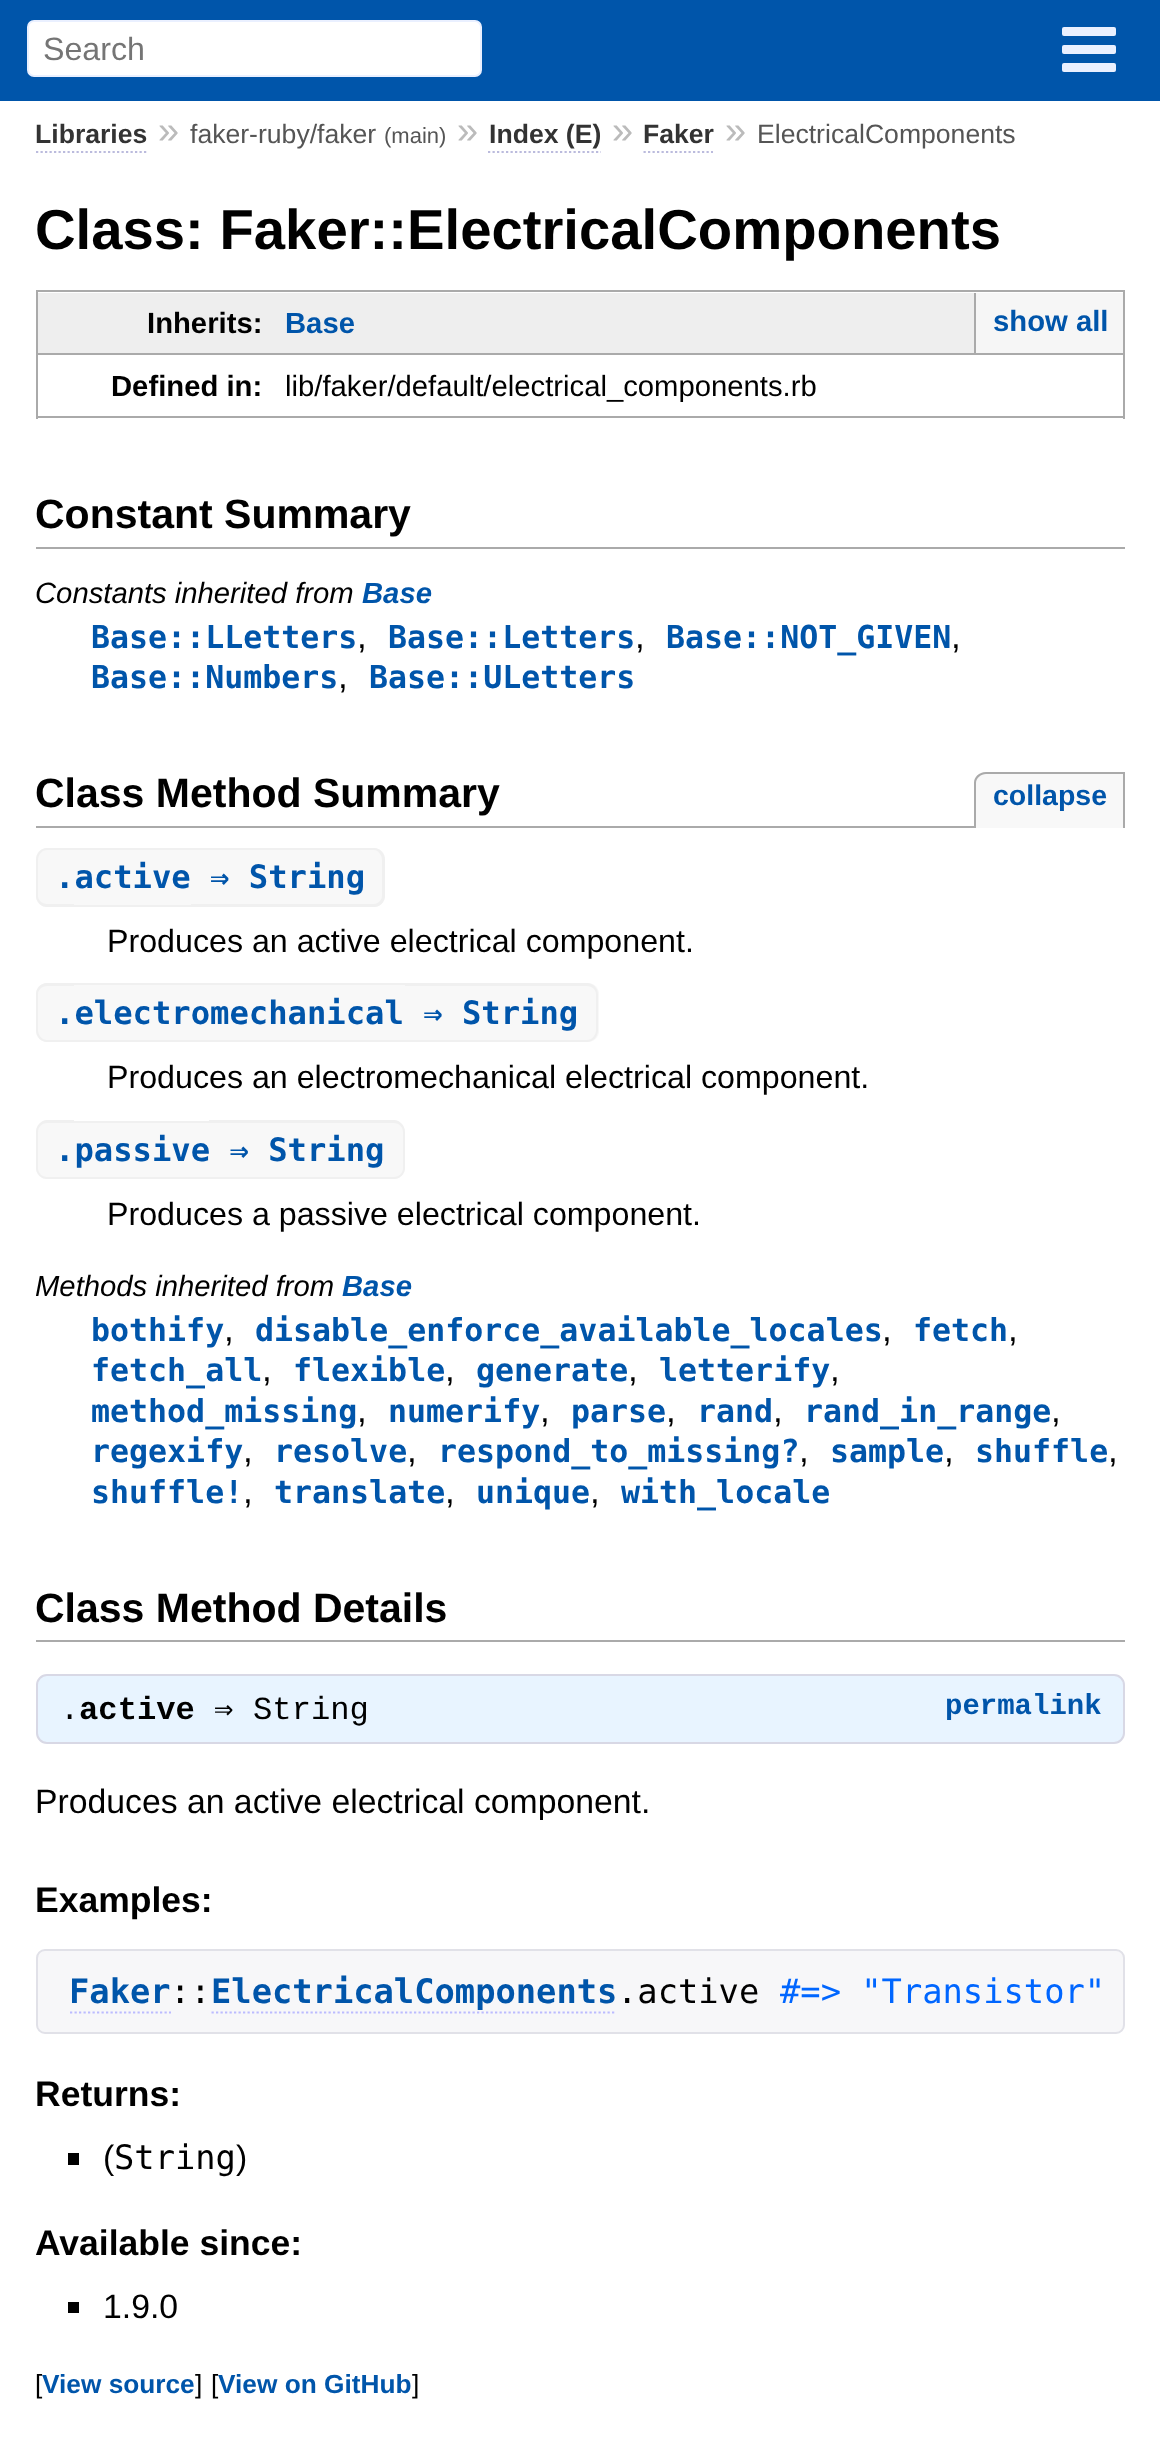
<!DOCTYPE html>
<meta charset="utf-8">
<style>body { margin: 0 } canvas { display: block }</style>
<canvas id="canvas" width="1160" height="2444"></canvas>
<script type="module">
  const canvas = document.getElementById("canvas");
  const ctx = canvas.getContext("2d");
  ctx.miterLimit = 4;
  ctx.fontKerning = "normal";

  ctx.fillStyle = "#ffffff";
  ctx.fillRect(0, 0, 1160, 2444);
  ctx.fillStyle = "#0055aa";
  ctx.fillRect(0, 0, 1160, 101);
  ctx.fillStyle = "#ffffff";
  ctx.beginPath();
  ctx.roundRect(28, 21, 453, 55, 6);
  ctx.fill();
  ctx.strokeStyle = "#eaf0ff";
  ctx.lineWidth = 2;
  ctx.stroke();
  ctx.font = "32.2px Liberation Sans";
  ctx.fillStyle = "#757575";
  ctx.fillText("Search", 43, 60);
  ctx.fillStyle = "#eaf0ff";
  ctx.beginPath();
  ctx.roundRect(1062, 27, 54, 9, 2);
  ctx.fill();
  ctx.beginPath();
  ctx.roundRect(1062, 45, 54, 9, 2);
  ctx.fill();
  ctx.beginPath();
  ctx.roundRect(1062, 63, 54, 9, 2);
  ctx.fill();
  ctx.font = "bold 26.6px Liberation Sans";
  ctx.fillStyle = "#333333";
  ctx.fillText("Libraries", 35, 143);
  ctx.beginPath();
  ctx.moveTo(36, 152);
  ctx.lineTo(148.5, 152);
  ctx.strokeStyle = "#bbbbdd";
  ctx.lineWidth = 2.2;
  ctx.setLineDash([2.25, 2.25]);
  ctx.stroke();
  ctx.font = "38px Liberation Sans";
  ctx.fillStyle = "#bbbbbb";
  ctx.fillText("»", 158, 143);
  ctx.font = "26.6px Liberation Sans";
  ctx.fillStyle = "#555555";
  ctx.fillText("faker-ruby/faker", 190, 143);
  ctx.font = "22px Liberation Sans";
  ctx.fillText("(main)", 384, 143);
  ctx.font = "38px Liberation Sans";
  ctx.fillStyle = "#bbbbbb";
  ctx.fillText("»", 457, 143);
  ctx.font = "bold 26.6px Liberation Sans";
  ctx.fillStyle = "#333333";
  ctx.fillText("Index (E)", 489, 143);
  ctx.beginPath();
  ctx.moveTo(488, 152);
  ctx.lineTo(601, 152);
  ctx.stroke();
  ctx.font = "38px Liberation Sans";
  ctx.fillStyle = "#bbbbbb";
  ctx.fillText("»", 612, 143);
  ctx.font = "bold 26.6px Liberation Sans";
  ctx.fillStyle = "#333333";
  ctx.fillText("Faker", 643, 143);
  ctx.beginPath();
  ctx.moveTo(643.5, 152);
  ctx.lineTo(713, 152);
  ctx.stroke();
  ctx.font = "38px Liberation Sans";
  ctx.fillStyle = "#bbbbbb";
  ctx.fillText("»", 725, 143);
  ctx.font = "26.6px Liberation Sans";
  ctx.fillStyle = "#555555";
  ctx.fillText("ElectricalComponents", 757, 143);
  ctx.font = "bold 56.25px Liberation Sans";
  ctx.fillStyle = "#000000";
  ctx.fillText("Class: Faker::ElectricalComponents", 35, 249);
  ctx.fillStyle = "#eeeeee";
  ctx.fillRect(38, 293, 936, 60);
  ctx.fillStyle = "#aaaaaa";
  ctx.fillRect(36, 290, 1089, 2);
  ctx.fillRect(36, 290, 2, 63);
  ctx.font = "bold 29.25px Liberation Sans";
  ctx.fillStyle = "#000000";
  ctx.fillText("Inherits:", 147, 333);
  ctx.fillStyle = "#aaaaaa";
  ctx.fillRect(36, 353, 1089, 2);
  ctx.fillRect(1123, 290, 2, 129);
  ctx.fillStyle = "#0055aa";
  ctx.fillText("Base", 285, 333);
  ctx.fillStyle = "#f6f6f6";
  ctx.fillRect(976, 293, 147, 60);
  ctx.fillStyle = "#aaaaaa";
  ctx.fillRect(974, 293, 2, 60);
  ctx.fillStyle = "#0055aa";
  ctx.fillText("show all", 993, 331);
  ctx.fillStyle = "#aaaaaa";
  ctx.fillRect(36, 416, 250, 2);
  ctx.fillRect(36, 353, 2, 66);
  ctx.fillStyle = "#000000";
  ctx.fillText("Defined in:", 111, 396);
  ctx.fillStyle = "#aaaaaa";
  ctx.fillRect(286, 416, 839, 2);
  ctx.font = "29.25px Liberation Sans";
  ctx.fillStyle = "#000000";
  ctx.fillText("lib/faker/default/electrical_components.rb", 285, 396);
  ctx.fillStyle = "#aaaaaa";
  ctx.fillRect(36, 547, 1089, 2);
  ctx.font = "bold 41px Liberation Sans";
  ctx.fillStyle = "#000000";
  ctx.fillText("Constant Summary", 35, 528);
  ctx.font = "italic 29.25px Liberation Sans";
  ctx.fillText("Constants inherited from", 35, 603);
  ctx.font = "italic bold 29.25px Liberation Sans";
  ctx.fillStyle = "#0055aa";
  ctx.fillText("Base", 362, 603);
  ctx.font = "bold 31.6px DejaVu Sans Mono";
  ctx.fillText("Base::LLetters", 91, 648);
  ctx.font = "35px Liberation Sans";
  ctx.fillStyle = "#000000";
  ctx.fillText(",", 357, 648);
  ctx.font = "bold 31.6px DejaVu Sans Mono";
  ctx.fillStyle = "#0055aa";
  ctx.fillText("Base::Letters", 388, 648);
  ctx.font = "35px Liberation Sans";
  ctx.fillStyle = "#000000";
  ctx.fillText(",", 635, 648);
  ctx.font = "bold 31.6px DejaVu Sans Mono";
  ctx.fillStyle = "#0055aa";
  ctx.fillText("Base::NOT_GIVEN", 666, 648);
  ctx.font = "35px Liberation Sans";
  ctx.fillStyle = "#000000";
  ctx.fillText(",", 951, 648);
  ctx.font = "bold 31.6px DejaVu Sans Mono";
  ctx.fillStyle = "#0055aa";
  ctx.fillText("Base::Numbers", 91, 688);
  ctx.font = "35px Liberation Sans";
  ctx.fillStyle = "#000000";
  ctx.fillText(",", 338, 688);
  ctx.font = "bold 31.6px DejaVu Sans Mono";
  ctx.fillStyle = "#0055aa";
  ctx.fillText("Base::ULetters", 369, 688);
  ctx.fillStyle = "#aaaaaa";
  ctx.fillRect(36, 826, 938, 2);
  ctx.font = "bold 41px Liberation Sans";
  ctx.fillStyle = "#000000";
  ctx.fillText("Class Method Summary", 35, 807);
  ctx.fillStyle = "#f8f8f8";
  ctx.beginPath();
  ctx.roundRect(974, 772, 151, 56, [11, 0, 0, 0]);
  ctx.fill();
  ctx.fillStyle = "#aaaaaa";
  ctx.beginPath();
  ctx.moveTo(986, 772);
  ctx.lineTo(1125, 772);
  ctx.lineTo(1125, 828);
  ctx.lineTo(974, 828);
  ctx.lineTo(974, 783);
  ctx.bezierCurveTo(974, 777, 979, 772, 986, 772);
  ctx.closePath();
  ctx.moveTo(986, 774);
  ctx.lineTo(1123, 774);
  ctx.lineTo(1123, 828);
  ctx.lineTo(976, 828);
  ctx.lineTo(976, 783);
  ctx.bezierCurveTo(976, 778, 981, 774, 986, 774);
  ctx.closePath();
  ctx.fill("evenodd");
  ctx.font = "bold 28.5px Liberation Sans";
  ctx.fillStyle = "#0055aa";
  ctx.fillText("collapse", 993, 805);
  ctx.fillStyle = "#f8f8f8";
  ctx.beginPath();
  ctx.roundRect(36, 848, 38, 59, [11, 0, 0, 11]);
  ctx.fill();
  ctx.fillStyle = "#f0f0f0";
  ctx.beginPath();
  ctx.moveTo(47, 848);
  ctx.lineTo(74, 848);
  ctx.lineTo(74, 907);
  ctx.lineTo(47, 907);
  ctx.bezierCurveTo(41, 907, 36, 902, 36, 896);
  ctx.lineTo(36, 860);
  ctx.bezierCurveTo(36, 853, 41, 848, 47, 848);
  ctx.closePath();
  ctx.moveTo(47, 850);
  ctx.lineTo(74, 850);
  ctx.lineTo(74, 904);
  ctx.lineTo(47, 904);
  ctx.bezierCurveTo(42, 904, 38, 900, 38, 896);
  ctx.lineTo(38, 860);
  ctx.bezierCurveTo(38, 855, 42, 850, 47, 850);
  ctx.closePath();
  ctx.fill("evenodd");
  ctx.fillStyle = "#f8f8f8";
  ctx.fillRect(74, 850, 117, 55);
  ctx.beginPath();
  ctx.roundRect(191, 848, 194, 59, [0, 11, 11, 0]);
  ctx.fill();
  ctx.fillStyle = "#f0f0f0";
  ctx.beginPath();
  ctx.moveTo(191, 848);
  ctx.lineTo(374, 848);
  ctx.bezierCurveTo(380, 848, 385, 853, 385, 860);
  ctx.lineTo(385, 896);
  ctx.bezierCurveTo(385, 902, 380, 907, 374, 907);
  ctx.lineTo(191, 907);
  ctx.closePath();
  ctx.moveTo(191, 850);
  ctx.lineTo(374, 850);
  ctx.bezierCurveTo(378, 850, 382, 855, 382, 860);
  ctx.lineTo(382, 896);
  ctx.bezierCurveTo(382, 900, 378, 904, 374, 904);
  ctx.lineTo(191, 904);
  ctx.closePath();
  ctx.fill("evenodd");
  ctx.font = "bold 32.2px DejaVu Sans Mono";
  ctx.fillStyle = "#0055aa";
  ctx.fillText(".active ⇒ String", 55, 888);
  ctx.fillStyle = "#f0f0f0";
  ctx.fillRect(74, 848, 117, 2);
  ctx.fillRect(74, 905, 117, 2);
  ctx.font = "32.2px Liberation Sans";
  ctx.fillStyle = "#000000";
  ctx.fillText("Produces an active electrical component.", 107, 952);
  ctx.fillStyle = "#f8f8f8";
  ctx.beginPath();
  ctx.roundRect(36, 983, 38, 59, [11, 0, 0, 11]);
  ctx.fill();
  ctx.fillStyle = "#f0f0f0";
  ctx.beginPath();
  ctx.moveTo(47, 983);
  ctx.lineTo(74, 983);
  ctx.lineTo(74, 1042);
  ctx.lineTo(47, 1042);
  ctx.bezierCurveTo(41, 1042, 36, 1037, 36, 1030);
  ctx.lineTo(36, 994);
  ctx.bezierCurveTo(36, 988, 41, 983, 47, 983);
  ctx.closePath();
  ctx.moveTo(47, 986);
  ctx.lineTo(74, 986);
  ctx.lineTo(74, 1040);
  ctx.lineTo(47, 1040);
  ctx.bezierCurveTo(42, 1040, 38, 1035, 38, 1030);
  ctx.lineTo(38, 994);
  ctx.bezierCurveTo(38, 990, 42, 986, 47, 986);
  ctx.closePath();
  ctx.fill("evenodd");
  ctx.fillStyle = "#f8f8f8";
  ctx.fillRect(74, 985, 331, 55);
  ctx.beginPath();
  ctx.roundRect(405, 983, 194, 59, [0, 11, 11, 0]);
  ctx.fill();
  ctx.fillStyle = "#f0f0f0";
  ctx.beginPath();
  ctx.moveTo(405, 983);
  ctx.lineTo(587, 983);
  ctx.bezierCurveTo(593, 983, 598, 988, 598, 994);
  ctx.lineTo(598, 1030);
  ctx.bezierCurveTo(598, 1037, 593, 1042, 587, 1042);
  ctx.lineTo(405, 1042);
  ctx.closePath();
  ctx.moveTo(405, 986);
  ctx.lineTo(587, 986);
  ctx.bezierCurveTo(592, 986, 596, 990, 596, 994);
  ctx.lineTo(596, 1030);
  ctx.bezierCurveTo(596, 1035, 592, 1040, 587, 1040);
  ctx.lineTo(405, 1040);
  ctx.closePath();
  ctx.fill("evenodd");
  ctx.font = "bold 32.2px DejaVu Sans Mono";
  ctx.fillStyle = "#0055aa";
  ctx.fillText(".electromechanical ⇒ String", 55, 1024);
  ctx.fillStyle = "#f0f0f0";
  ctx.fillRect(74, 983, 331, 2);
  ctx.fillRect(74, 1040, 331, 2);
  ctx.font = "32.2px Liberation Sans";
  ctx.fillStyle = "#000000";
  ctx.fillText("Produces an electromechanical electrical component.", 107, 1088);
  ctx.fillStyle = "#f8f8f8";
  ctx.beginPath();
  ctx.roundRect(36, 1121, 38, 58, [11, 0, 0, 11]);
  ctx.fill();
  ctx.fillStyle = "#f0f0f0";
  ctx.beginPath();
  ctx.moveTo(47, 1120);
  ctx.lineTo(74, 1120);
  ctx.lineTo(74, 1179);
  ctx.lineTo(47, 1179);
  ctx.bezierCurveTo(41, 1179, 36, 1174, 36, 1168);
  ctx.lineTo(36, 1132);
  ctx.bezierCurveTo(36, 1126, 41, 1120, 47, 1120);
  ctx.closePath();
  ctx.moveTo(47, 1123);
  ctx.lineTo(74, 1123);
  ctx.lineTo(74, 1177);
  ctx.lineTo(47, 1177);
  ctx.bezierCurveTo(42, 1177, 38, 1173, 38, 1168);
  ctx.lineTo(38, 1132);
  ctx.bezierCurveTo(38, 1127, 42, 1123, 47, 1123);
  ctx.closePath();
  ctx.fill("evenodd");
  ctx.fillStyle = "#f8f8f8";
  ctx.fillRect(74, 1123, 135, 54);
  ctx.beginPath();
  ctx.roundRect(209, 1121, 196, 58, [0, 11, 11, 0]);
  ctx.fill();
  ctx.fillStyle = "#f0f0f0";
  ctx.beginPath();
  ctx.moveTo(209, 1120);
  ctx.lineTo(394, 1120);
  ctx.bezierCurveTo(400, 1120, 405, 1126, 405, 1132);
  ctx.lineTo(405, 1168);
  ctx.bezierCurveTo(405, 1174, 400, 1179, 394, 1179);
  ctx.lineTo(209, 1179);
  ctx.closePath();
  ctx.moveTo(209, 1123);
  ctx.lineTo(394, 1123);
  ctx.bezierCurveTo(399, 1123, 403, 1127, 403, 1132);
  ctx.lineTo(403, 1168);
  ctx.bezierCurveTo(403, 1173, 399, 1177, 394, 1177);
  ctx.lineTo(209, 1177);
  ctx.closePath();
  ctx.fill("evenodd");
  ctx.font = "bold 32.2px DejaVu Sans Mono";
  ctx.fillStyle = "#0055aa";
  ctx.fillText(".passive ⇒ String", 55, 1161);
  ctx.fillStyle = "#f0f0f0";
  ctx.fillRect(74, 1121, 135, 2);
  ctx.fillRect(74, 1177, 135, 2);
  ctx.font = "32.2px Liberation Sans";
  ctx.fillStyle = "#000000";
  ctx.fillText("Produces a passive electrical component.", 107, 1225);
  ctx.font = "italic 29.25px Liberation Sans";
  ctx.fillText("Methods inherited from", 35, 1296);
  ctx.font = "italic bold 29.25px Liberation Sans";
  ctx.fillStyle = "#0055aa";
  ctx.fillText("Base", 342, 1296);
  ctx.font = "bold 31.6px DejaVu Sans Mono";
  ctx.fillText("bothify", 91, 1341);
  ctx.font = "35px Liberation Sans";
  ctx.fillStyle = "#000000";
  ctx.fillText(",", 224, 1341);
  ctx.font = "bold 31.6px DejaVu Sans Mono";
  ctx.fillStyle = "#0055aa";
  ctx.fillText("disable_enforce_available_locales", 255, 1341);
  ctx.font = "35px Liberation Sans";
  ctx.fillStyle = "#000000";
  ctx.fillText(",", 882, 1341);
  ctx.font = "bold 31.6px DejaVu Sans Mono";
  ctx.fillStyle = "#0055aa";
  ctx.fillText("fetch", 913, 1341);
  ctx.font = "35px Liberation Sans";
  ctx.fillStyle = "#000000";
  ctx.fillText(",", 1008, 1341);
  ctx.font = "bold 31.6px DejaVu Sans Mono";
  ctx.fillStyle = "#0055aa";
  ctx.fillText("fetch_all", 91, 1381);
  ctx.font = "35px Liberation Sans";
  ctx.fillStyle = "#000000";
  ctx.fillText(",", 262, 1381);
  ctx.font = "bold 31.6px DejaVu Sans Mono";
  ctx.fillStyle = "#0055aa";
  ctx.fillText("flexible", 293, 1381);
  ctx.font = "35px Liberation Sans";
  ctx.fillStyle = "#000000";
  ctx.fillText(",", 445, 1381);
  ctx.font = "bold 31.6px DejaVu Sans Mono";
  ctx.fillStyle = "#0055aa";
  ctx.fillText("generate", 476, 1381);
  ctx.font = "35px Liberation Sans";
  ctx.fillStyle = "#000000";
  ctx.fillText(",", 628, 1381);
  ctx.font = "bold 31.6px DejaVu Sans Mono";
  ctx.fillStyle = "#0055aa";
  ctx.fillText("letterify", 659, 1381);
  ctx.font = "35px Liberation Sans";
  ctx.fillStyle = "#000000";
  ctx.fillText(",", 830, 1381);
  ctx.font = "bold 31.6px DejaVu Sans Mono";
  ctx.fillStyle = "#0055aa";
  ctx.fillText("method_missing", 91, 1422);
  ctx.font = "35px Liberation Sans";
  ctx.fillStyle = "#000000";
  ctx.fillText(",", 357, 1422);
  ctx.font = "bold 31.6px DejaVu Sans Mono";
  ctx.fillStyle = "#0055aa";
  ctx.fillText("numerify", 388, 1422);
  ctx.font = "35px Liberation Sans";
  ctx.fillStyle = "#000000";
  ctx.fillText(",", 540, 1422);
  ctx.font = "bold 31.6px DejaVu Sans Mono";
  ctx.fillStyle = "#0055aa";
  ctx.fillText("parse", 571, 1422);
  ctx.font = "35px Liberation Sans";
  ctx.fillStyle = "#000000";
  ctx.fillText(",", 666, 1422);
  ctx.font = "bold 31.6px DejaVu Sans Mono";
  ctx.fillStyle = "#0055aa";
  ctx.fillText("rand", 697, 1422);
  ctx.font = "35px Liberation Sans";
  ctx.fillStyle = "#000000";
  ctx.fillText(",", 773, 1422);
  ctx.font = "bold 31.6px DejaVu Sans Mono";
  ctx.fillStyle = "#0055aa";
  ctx.fillText("rand_in_range", 804, 1422);
  ctx.font = "35px Liberation Sans";
  ctx.fillStyle = "#000000";
  ctx.fillText(",", 1051, 1422);
  ctx.font = "bold 31.6px DejaVu Sans Mono";
  ctx.fillStyle = "#0055aa";
  ctx.fillText("regexify", 91, 1462);
  ctx.font = "35px Liberation Sans";
  ctx.fillStyle = "#000000";
  ctx.fillText(",", 243, 1462);
  ctx.font = "bold 31.6px DejaVu Sans Mono";
  ctx.fillStyle = "#0055aa";
  ctx.fillText("resolve", 274, 1462);
  ctx.font = "35px Liberation Sans";
  ctx.fillStyle = "#000000";
  ctx.fillText(",", 407, 1462);
  ctx.font = "bold 31.6px DejaVu Sans Mono";
  ctx.fillStyle = "#0055aa";
  ctx.fillText("respond_to_missing?", 438, 1462);
  ctx.font = "35px Liberation Sans";
  ctx.fillStyle = "#000000";
  ctx.fillText(",", 799, 1462);
  ctx.font = "bold 31.6px DejaVu Sans Mono";
  ctx.fillStyle = "#0055aa";
  ctx.fillText("sample", 830, 1462);
  ctx.font = "35px Liberation Sans";
  ctx.fillStyle = "#000000";
  ctx.fillText(",", 944, 1462);
  ctx.font = "bold 31.6px DejaVu Sans Mono";
  ctx.fillStyle = "#0055aa";
  ctx.fillText("shuffle", 975, 1462);
  ctx.font = "35px Liberation Sans";
  ctx.fillStyle = "#000000";
  ctx.fillText(",", 1108, 1462);
  ctx.font = "bold 31.6px DejaVu Sans Mono";
  ctx.fillStyle = "#0055aa";
  ctx.fillText("shuffle!", 91, 1503);
  ctx.font = "35px Liberation Sans";
  ctx.fillStyle = "#000000";
  ctx.fillText(",", 243, 1503);
  ctx.font = "bold 31.6px DejaVu Sans Mono";
  ctx.fillStyle = "#0055aa";
  ctx.fillText("translate", 274, 1503);
  ctx.font = "35px Liberation Sans";
  ctx.fillStyle = "#000000";
  ctx.fillText(",", 445, 1503);
  ctx.font = "bold 31.6px DejaVu Sans Mono";
  ctx.fillStyle = "#0055aa";
  ctx.fillText("unique", 476, 1503);
  ctx.font = "35px Liberation Sans";
  ctx.fillStyle = "#000000";
  ctx.fillText(",", 590, 1503);
  ctx.font = "bold 31.6px DejaVu Sans Mono";
  ctx.fillStyle = "#0055aa";
  ctx.fillText("with_locale", 621, 1503);
  ctx.fillStyle = "#aaaaaa";
  ctx.fillRect(36, 1640, 1089, 2);
  ctx.font = "bold 41px Liberation Sans";
  ctx.fillStyle = "#000000";
  ctx.fillText("Class Method Details", 35, 1622);
  ctx.fillStyle = "#e8f4ff";
  ctx.beginPath();
  ctx.roundRect(37, 1675, 1087, 68, 10);
  ctx.fill();
  ctx.strokeStyle = "#d8d8e5";
  ctx.lineWidth = 2;
  ctx.setLineDash([]);
  ctx.stroke();
  ctx.font = "bold 32.2px Liberation Mono";
  ctx.fillStyle = "#000000";
  ctx.fillText("active", 79, 1719);
  ctx.font = "32.2px DejaVu Sans Mono";
  ctx.fillText("⇒", 214, 1719);
  ctx.font = "32.2px Liberation Mono";
  ctx.fillText("String", 253, 1719);
  ctx.font = "bold 29px Liberation Mono";
  ctx.fillStyle = "#0055aa";
  ctx.fillText("permalink", 945, 1714);
  ctx.font = "32.2px Liberation Mono";
  ctx.fillStyle = "#000000";
  ctx.fillText(".", 60, 1719);
  ctx.font = "33.75px Liberation Sans";
  ctx.fillText("Produces an active electrical component.", 35, 1813);
  ctx.font = "bold 35.5px Liberation Sans";
  ctx.fillText("Examples:", 35, 1912);
  ctx.fillStyle = "#f7f7f9";
  ctx.beginPath();
  ctx.roundRect(37, 1950, 1087, 83, 8);
  ctx.fill();
  ctx.strokeStyle = "#e1e1e8";
  ctx.stroke();
  ctx.font = "bold 33.75px DejaVu Sans Mono";
  ctx.fillStyle = "#0055aa";
  ctx.fillText("Faker", 69, 2003);
  ctx.beginPath();
  ctx.moveTo(70, 2012.5);
  ctx.lineTo(171, 2012.5);
  ctx.strokeStyle = "#bbbbff";
  ctx.lineWidth = 2.2;
  ctx.setLineDash([2.25, 2.25]);
  ctx.stroke();
  ctx.font = "33.75px DejaVu Sans Mono";
  ctx.fillStyle = "#000000";
  ctx.fillText("::", 170, 2003);
  ctx.font = "bold 33.75px DejaVu Sans Mono";
  ctx.fillStyle = "#0055aa";
  ctx.fillText("ElectricalComponents", 211, 2003);
  ctx.beginPath();
  ctx.moveTo(211.5, 2012.5);
  ctx.lineTo(616.5, 2012.5);
  ctx.stroke();
  ctx.font = "33.75px DejaVu Sans Mono";
  ctx.fillStyle = "#000000";
  ctx.fillText(".active", 617, 2003);
  ctx.fillStyle = "#0066ff";
  ctx.fillText("#=> \"Transistor\"", 780, 2003);
  ctx.font = "bold 35.5px Liberation Sans";
  ctx.fillStyle = "#000000";
  ctx.fillText("Returns:", 35, 2106);
  ctx.fillRect(68, 2153, 11, 12);
  ctx.font = "33.75px Liberation Sans";
  ctx.fillText("(", 103, 2169);
  ctx.font = "33.75px DejaVu Sans Mono";
  ctx.fillText("String", 114, 2169);
  ctx.font = "33.75px Liberation Sans";
  ctx.fillText(")", 236, 2169);
  ctx.font = "bold 35.5px Liberation Sans";
  ctx.fillText("Available since:", 35, 2255);
  ctx.fillRect(68, 2302, 11, 11);
  ctx.font = "33.75px Liberation Sans";
  ctx.fillText("1.9.0", 103, 2318);
  ctx.font = "26.25px Liberation Sans";
  ctx.fillText("[", 35, 2393);
  ctx.font = "bold 26.25px Liberation Sans";
  ctx.fillStyle = "#0055aa";
  ctx.fillText("View source", 42, 2393);
  ctx.font = "26.25px Liberation Sans";
  ctx.fillStyle = "#000000";
  ctx.fillText("]", 195, 2393);
  ctx.fillText("[", 211, 2393);
  ctx.font = "bold 26.25px Liberation Sans";
  ctx.fillStyle = "#0055aa";
  ctx.fillText("View on GitHub", 218, 2393);
  ctx.font = "26.25px Liberation Sans";
  ctx.fillStyle = "#000000";
  ctx.fillText("]", 412, 2393);
</script>
